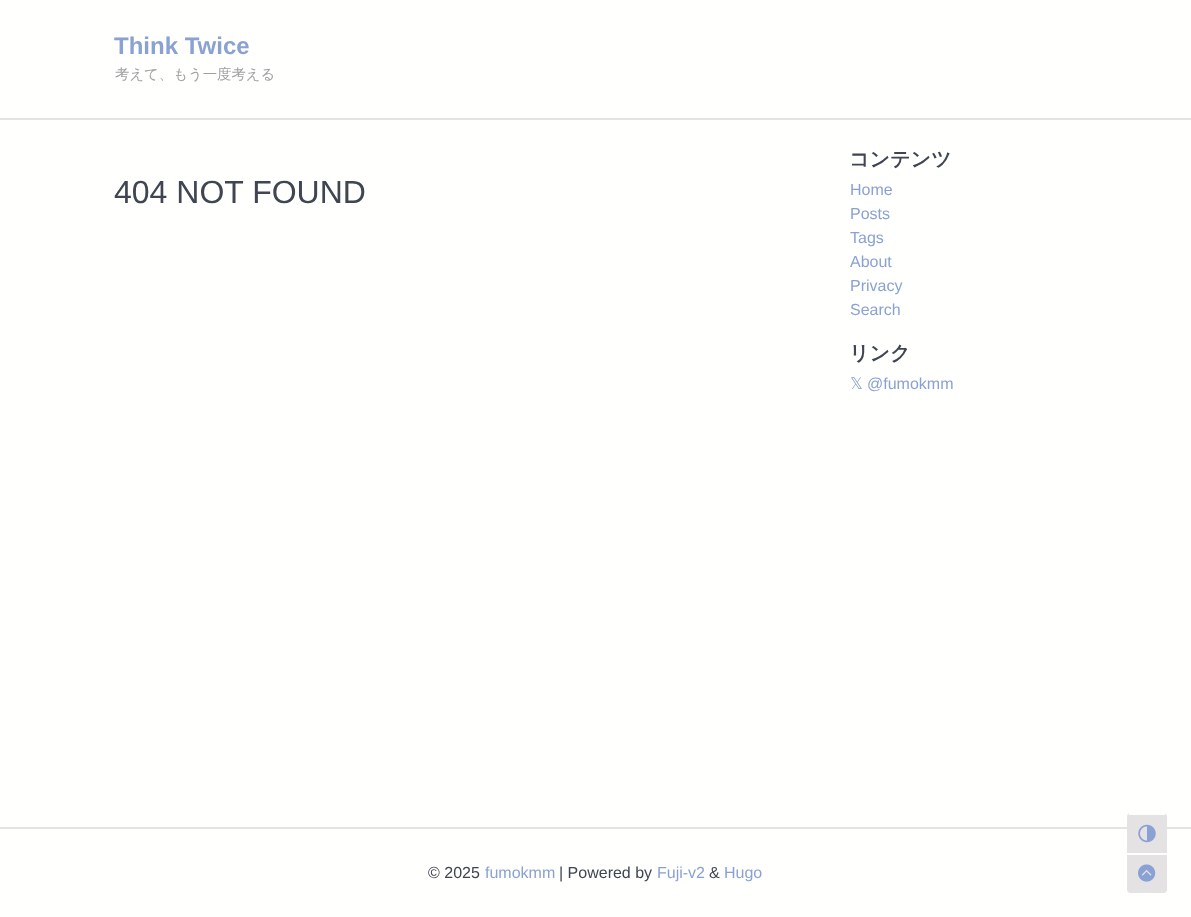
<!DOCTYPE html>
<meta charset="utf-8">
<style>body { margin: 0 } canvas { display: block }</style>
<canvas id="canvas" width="1191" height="917"></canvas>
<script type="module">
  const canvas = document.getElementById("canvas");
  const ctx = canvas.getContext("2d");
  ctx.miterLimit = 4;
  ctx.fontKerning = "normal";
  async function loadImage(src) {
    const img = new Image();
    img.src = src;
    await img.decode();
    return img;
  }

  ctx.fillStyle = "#fffffd";
  ctx.fillRect(0, 0, 1191, 917);
  ctx.fillStyle = "#e5e2e4";
  ctx.fillRect(0, 118, 1191, 2);
  ctx.font = "bold 24px Liberation Sans";
  ctx.fillStyle = "#8aa2d3";
  ctx.fillText("Think Twice", 114, 54);
  ctx.font = "500 14.4px WenQuanYi Zen Hei";
  ctx.fillStyle = "#9ea1a3";
  ctx.fillText("考えて、もう一度考える", 115, 79);
  ctx.font = "32px Liberation Sans";
  ctx.fillStyle = "#3f4551";
  ctx.fillText("404 NOT FOUND", 114, 203);
  ctx.font = "bold 20px WenQuanYi Zen Hei";
  ctx.fillText("コンテンツ", 849, 166);
  ctx.font = "16px Liberation Sans";
  ctx.fillStyle = "#8aa2d3";
  ctx.fillText("Home", 850, 195);
  ctx.fillText("Posts", 850, 219);
  ctx.fillText("Tags", 850, 243);
  ctx.fillText("About", 850, 267);
  ctx.fillText("Privacy", 850, 291);
  ctx.fillText("Search", 850, 315);
  ctx.font = "bold 20px WenQuanYi Zen Hei";
  ctx.fillStyle = "#3f4551";
  ctx.fillText("リンク", 849, 360);
  ctx.font = "16px DejaVu Sans";
  ctx.fillStyle = "#8aa2d3";
  ctx.fillText("𝕏", 850, 389);
  ctx.font = "16px Liberation Sans";
  ctx.fillText("@fumokmm", 867, 389);
  ctx.fillStyle = "#e5e2e4";
  ctx.fillRect(0, 827, 1191, 2);
  ctx.beginPath();
  ctx.roundRect(1127, 813, 40, 40, [4, 4, 0, 0]);
  ctx.fill();
  ctx.fillStyle = "#fffffd";
  ctx.fillRect(1129, 813, 36, 2);
  ctx.drawImage(await loadImage("img1.png"), 1138, 824, 18, 19);
  ctx.fillStyle = "#e5e2e4";
  ctx.beginPath();
  ctx.roundRect(1127, 853, 40, 40, [0, 0, 4, 4]);
  ctx.fill();
  ctx.fillStyle = "#fffffd";
  ctx.fillRect(1127, 853, 40, 2);
  ctx.drawImage(await loadImage("img2.png"), 1138, 864, 18, 18);
  ctx.fillStyle = "#3f4551";
  ctx.fillText("© 2025", 428, 878);
  ctx.fillStyle = "#8aa2d3";
  ctx.fillText("fumokmm", 485, 878);
  ctx.fillStyle = "#3f4551";
  ctx.fillText("| Powered by", 559, 878);
  ctx.fillStyle = "#8aa2d3";
  ctx.fillText("Fuji-v2", 657, 878);
  ctx.fillStyle = "#3f4551";
  ctx.fillText("&", 709, 878);
  ctx.fillStyle = "#8aa2d3";
  ctx.fillText("Hugo", 724, 878);
</script>
